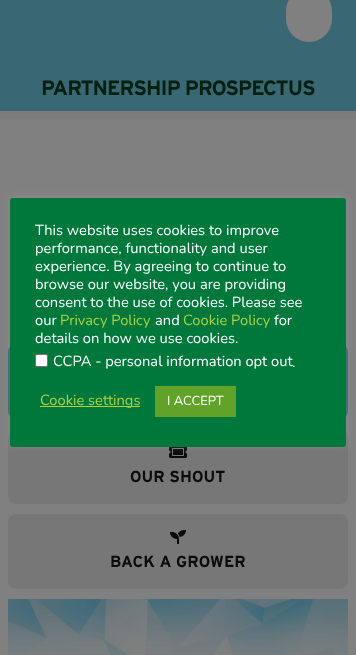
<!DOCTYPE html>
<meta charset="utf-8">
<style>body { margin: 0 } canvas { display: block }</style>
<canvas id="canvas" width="356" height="655"></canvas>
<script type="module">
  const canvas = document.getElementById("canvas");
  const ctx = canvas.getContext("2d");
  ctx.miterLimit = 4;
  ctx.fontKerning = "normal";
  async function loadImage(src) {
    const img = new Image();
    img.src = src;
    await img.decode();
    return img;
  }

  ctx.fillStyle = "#808080";
  ctx.fillRect(0, 0, 356, 655);
  ctx.fillStyle = "#396774";
  ctx.fillRect(0, 0, 356, 111);
  ctx.fillStyle = "#808080";
  ctx.beginPath();
  ctx.roundRect(286, -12, 46, 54, 23);
  ctx.fill();
  ctx.letterSpacing = "-1px";
  ctx.font = "bold 20.75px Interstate";
  ctx.fillStyle = "#042011";
  ctx.fillText("PARTNERSHIP PROSPECTUS", 41, 95);
  ctx.fillStyle = "#7d7d7d";
  ctx.fillRect(0, 111, 356, 8);
  ctx.fillStyle = "#396774";
  ctx.beginPath();
  ctx.roundRect(8, 344, 340, 75, 8);
  ctx.fill();
  ctx.fillStyle = "#777777";
  ctx.beginPath();
  ctx.roundRect(8, 429, 340, 75, 8);
  ctx.fill();
  ctx.drawImage(await loadImage("img1.png"), 169, 447, 18, 11);
  ctx.fillStyle = "rgba(172, 171, 171, 0.3)";
  ctx.filter = "blur(5px)";
  ctx.beginPath();
  ctx.roundRect(10, 197, 336, 249, 3);
  ctx.fill();
  ctx.filter = "none";
  ctx.fillStyle = "#00783c";
  ctx.beginPath();
  ctx.roundRect(10, 198, 336, 249, 3);
  ctx.fill();
  ctx.letterSpacing = "0px";
  ctx.font = "14.7px Nunito";
  ctx.fillStyle = "#ffffff";
  ctx.fillText("This website uses cookies to improve", 35, 235);
  ctx.fillText("performance, functionality and user", 35, 253);
  ctx.fillText("experience. By agreeing to continue to", 35, 271);
  ctx.fillText("browse our website, you are providing", 35, 289);
  ctx.fillText("consent to the use of cookies. Please see", 35, 307);
  ctx.fillText("our", 35, 325);
  ctx.fillStyle = "#afd13f";
  ctx.fillText("Privacy Policy", 60, 325);
  ctx.fillStyle = "#ffffff";
  ctx.fillText("and", 155, 325);
  ctx.fillStyle = "#afd13f";
  ctx.fillText("Cookie Policy", 183, 325);
  ctx.fillStyle = "#ffffff";
  ctx.fillText("for", 274, 325);
  ctx.fillText("details on how we use cookies.", 35, 343);
  ctx.beginPath();
  ctx.roundRect(35.5, 354.5, 12, 12, 1.5);
  ctx.fill();
  ctx.strokeStyle = "#767676";
  ctx.stroke();
  ctx.fillText("CCPA - personal information opt out", 53, 366);
  ctx.fillText(".", 292, 367);
  ctx.fillStyle = "#afd13f";
  ctx.fillRect(40, 406, 100, 1);
  ctx.fillText("Cookie settings", 40, 405);
  ctx.fillStyle = "#61a229";
  ctx.fillRect(155, 386, 81, 31);
  ctx.font = "13px Nunito";
  ctx.fillStyle = "#ffffff";
  ctx.fillText("I ACCEPT", 167, 405);
  ctx.font = "bold 16px Interstate";
  ctx.fillStyle = "#0b0b0b";
  ctx.fillText("OUR SHOUT", 130, 482);
  ctx.fillStyle = "#777777";
  ctx.beginPath();
  ctx.roundRect(8, 514, 340, 75, 8);
  ctx.fill();
  ctx.drawImage(await loadImage("img2.png"), 170, 530, 16, 14);
  ctx.fillStyle = "#0b0b0b";
  ctx.fillText("BACK A GROWER", 110, 567);
  ctx.drawImage(await loadImage("img3.png"), 8, 599, 340, 56);
</script>
